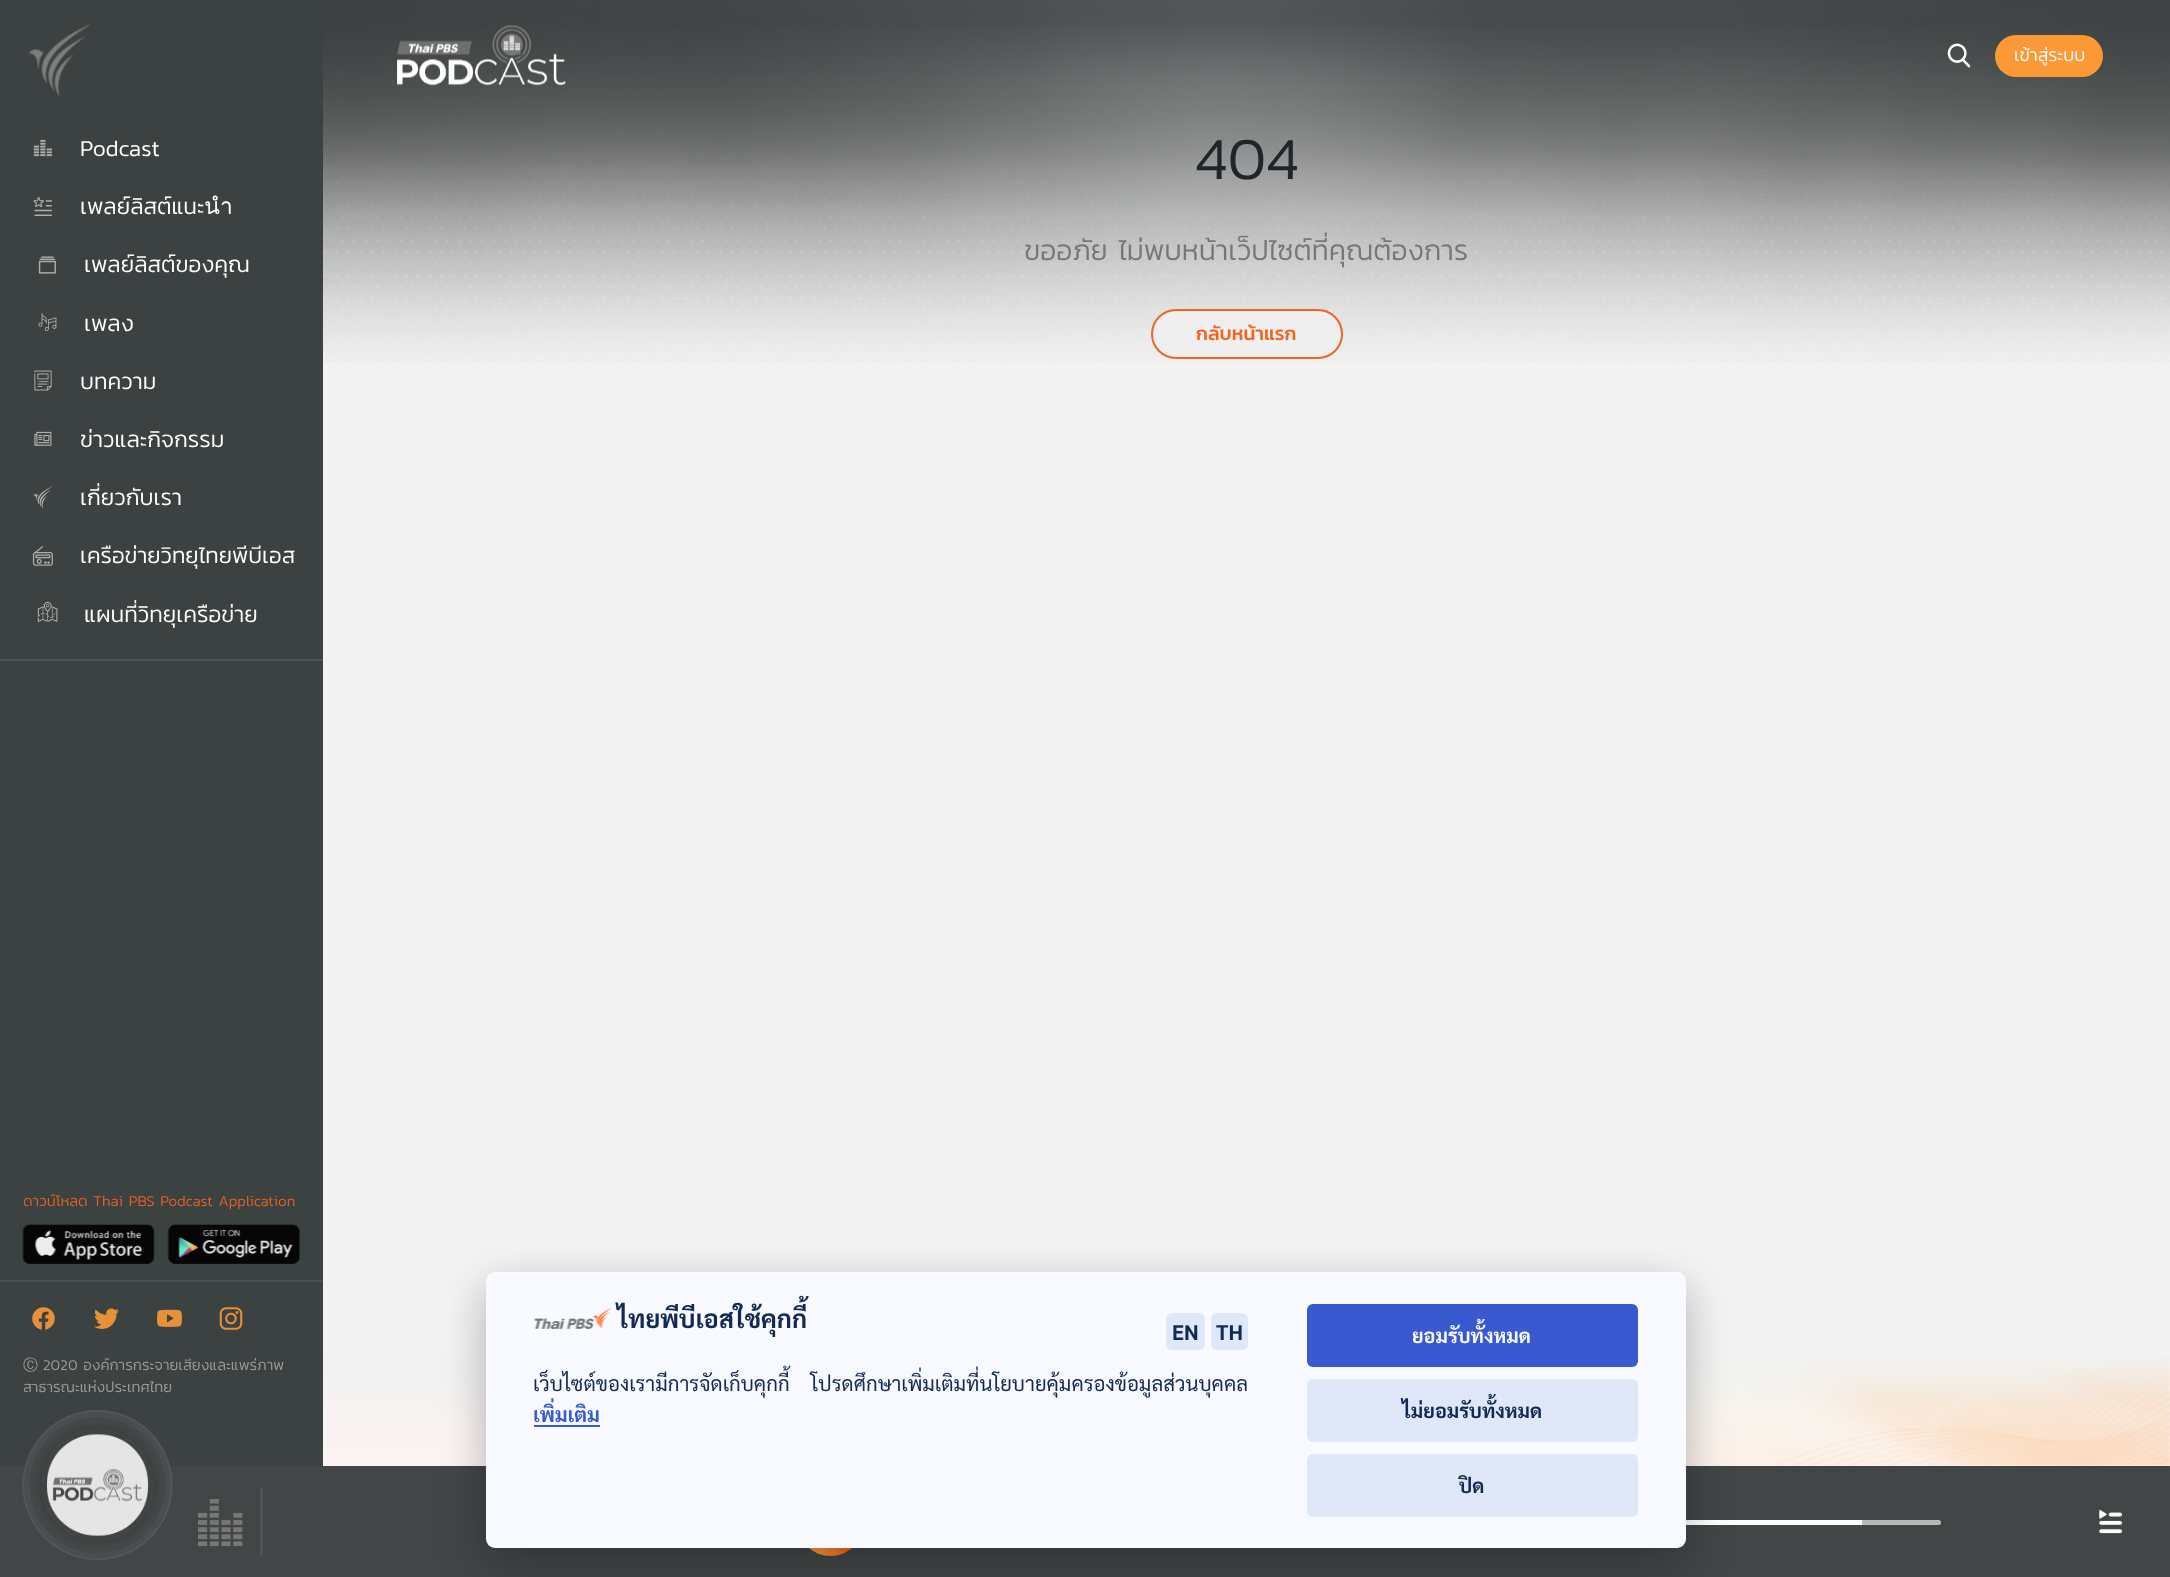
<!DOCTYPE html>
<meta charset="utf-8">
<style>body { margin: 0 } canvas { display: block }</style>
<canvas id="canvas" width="2170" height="1577"></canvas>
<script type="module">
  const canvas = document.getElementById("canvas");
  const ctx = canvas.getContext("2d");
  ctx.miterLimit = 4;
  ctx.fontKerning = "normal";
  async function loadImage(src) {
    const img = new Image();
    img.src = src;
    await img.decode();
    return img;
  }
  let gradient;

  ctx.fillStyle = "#f3f3f3";
  ctx.fillRect(0, 0, 2170, 1577);
  ctx.fillStyle = "#3c4142";
  ctx.fillRect(0, 0, 323, 1466);
  ctx.drawImage(await loadImage("img1.png"), 28, 24, 63, 72);
  ctx.fillStyle = "#4e5354";
  ctx.fillRect(0, 659, 323, 2);
  ctx.drawImage(await loadImage("img2.png"), 33, 139, 19, 18);
  ctx.font = "300 22.75px Kanit";
  ctx.fillStyle = "#ffffff";
  ctx.fillText("Podcast", 80, 156);
  ctx.drawImage(await loadImage("img3.png"), 33, 197, 20, 19);
  ctx.fillText("เพลย์ลิสต์แนะนำ", 80, 214);
  ctx.drawImage(await loadImage("img4.png"), 38, 256, 18, 18);
  ctx.fillText("เพลย์ลิสต์ของคุณ", 84, 272);
  ctx.drawImage(await loadImage("img5.png"), 38, 313, 19, 18);
  ctx.fillText("เพลง", 84, 331);
  ctx.drawImage(await loadImage("img6.png"), 34, 370, 18, 21);
  ctx.fillText("บทความ", 80, 389);
  ctx.drawImage(await loadImage("img7.png"), 34, 431, 18, 15);
  ctx.fillText("ข่าวและกิจกรรม", 80, 447);
  ctx.drawImage(await loadImage("img8.png"), 33, 486, 20, 23);
  ctx.fillText("เกี่ยวกับเรา", 80, 505);
  ctx.drawImage(await loadImage("img9.png"), 32, 546, 21, 20);
  ctx.font = "300 22.5px Kanit";
  ctx.fillText("เครือข่ายวิทยุไทยพีบีเอส", 80, 563);
  ctx.drawImage(await loadImage("img10.png"), 37, 601, 21, 21);
  ctx.font = "300 22.75px Kanit";
  ctx.fillText("แผนที่วิทยุเครือข่าย", 84, 622);
  ctx.fillStyle = "#4c5152";
  ctx.fillRect(0, 1280, 323, 2);
  ctx.font = "300 15px Kanit";
  ctx.fillStyle = "#df6125";
  ctx.fillText("ดาวน์โหลด Thai PBS Podcast Application", 23, 1206);
  ctx.drawImage(await loadImage("img11.png"), 22, 1224, 133, 40);
  ctx.drawImage(await loadImage("img12.png"), 167, 1224, 133, 40);
  ctx.drawImage(await loadImage("img13.png"), 32, 1307, 23, 23);
  ctx.drawImage(await loadImage("img14.png"), 94, 1308, 25, 21);
  ctx.drawImage(await loadImage("img15.png"), 157, 1309, 25, 18);
  ctx.drawImage(await loadImage("img16.png"), 219, 1307, 24, 23);
  ctx.font = "500 15px WenQuanYi Zen Hei";
  ctx.fillStyle = "#9b9b9b";
  ctx.fillText("Ⓒ", 23, 1370);
  ctx.font = "300 15px Kanit";
  ctx.fillText("2020 องค์การกระจายเสียงและแพร่ภาพ", 43, 1370);
  ctx.fillText("สาธารณะแห่งประเทศไทย", 23, 1392);
  ctx.drawImage(await loadImage("img17.png"), 323, 0, 1847, 363);
  ctx.drawImage(await loadImage("img18.png"), 397, 25, 169, 61);
  ctx.drawImage(await loadImage("img19.png"), 1947, 43, 24, 25);
  ctx.fillStyle = "#fb9937";
  ctx.beginPath();
  ctx.roundRect(1995, 35, 108, 42, 21);
  ctx.fill();
  ctx.font = "300 18px Kanit";
  ctx.fillStyle = "#ffffff";
  ctx.fillText("เข้าสู่ระบบ", 2014, 61);
  ctx.font = "300 60px Kanit";
  ctx.fillStyle = "#212529";
  ctx.fillText("404", 1195, 179);
  ctx.font = "300 28.5px Kanit";
  ctx.fillStyle = "#777777";
  ctx.fillText("ขออภัย ไม่พบหน้าเว็ปไซต์ที่คุณต้องการ", 1024, 260);
  ctx.fillStyle = "#efefef";
  ctx.beginPath();
  ctx.roundRect(1152, 310, 190, 48, 24);
  ctx.fill();
  ctx.strokeStyle = "#f16522";
  ctx.lineWidth = 2;
  ctx.stroke();
  ctx.font = "500 19.25px Kanit";
  ctx.fillStyle = "#f16522";
  ctx.fillText("กลับหน้าแรก", 1196, 340);
  ctx.drawImage(await loadImage("img20.png"), 323, 1358, 1847, 108);
  ctx.fillStyle = "#424647";
  ctx.fillRect(0, 1466, 2170, 111);
  gradient = ctx.createLinearGradient(797, 1522, 864, 1522);
  gradient.addColorStop(0.35, "#fe9035");
  gradient.addColorStop(1, "#f35409");
  ctx.fillStyle = gradient;
  ctx.beginPath();
  ctx.roundRect(797, 1488, 67, 68, 33.5);
  ctx.fill();
  ctx.fillStyle = "#b9b9b9";
  ctx.beginPath();
  ctx.roundRect(1542, 1520, 399, 5, 2.5);
  ctx.fill();
  ctx.fillStyle = "#ffffff";
  ctx.fillRect(1686, 1520, 176, 5);
  ctx.fillStyle = "rgba(2, 2, 3, 0.28)";
  ctx.filter = "blur(22.5px)";
  ctx.beginPath();
  ctx.roundRect(486, 1287, 1200, 276, 9);
  ctx.fill();
  ctx.filter = "none";
  ctx.fillStyle = "#f9faff";
  ctx.beginPath();
  ctx.roundRect(486, 1272, 1200, 276, 9);
  ctx.fill();
  ctx.drawImage(await loadImage("img21.png"), 533, 1308, 79, 21);
  ctx.font = "bold 25.25px Sarabun";
  ctx.fillStyle = "#112954";
  ctx.fillText("ไทยพีบีเอสใช้คุกกี้", 617, 1328);
  ctx.fillStyle = "#dfe7f9";
  ctx.beginPath();
  ctx.roundRect(1166, 1313, 39, 37, 6);
  ctx.fill();
  ctx.font = "bold 21px Sarabun";
  ctx.fillStyle = "#112954";
  ctx.fillText("EN", 1172, 1340);
  ctx.fillStyle = "#dfe7f9";
  ctx.beginPath();
  ctx.roundRect(1211, 1313, 37, 37, 6);
  ctx.fill();
  ctx.fillStyle = "#112954";
  ctx.fillText("TH", 1216, 1340);
  ctx.wordSpacing = "16px";
  ctx.font = "20.4px Sarabun";
  ctx.fillText("เว็บไซต์ของเรามีการจัดเก็บคุกกี้ โปรดศึกษาเพิ่มเติมที่นโยบายคุ้มครองข้อมูลส่วนบุคคล", 533, 1391);
  ctx.wordSpacing = "0px";
  ctx.font = "bold 20.4px Sarabun";
  ctx.fillStyle = "#3859d0";
  ctx.fillText("เพิ่มเติม", 533, 1422);
  ctx.fillRect(534, 1425, 66, 2);
  ctx.beginPath();
  ctx.roundRect(1307, 1304, 331, 63, 6);
  ctx.fill();
  ctx.font = "bold 19.75px Sarabun";
  ctx.fillStyle = "#f9faff";
  ctx.fillText("ยอมรับทั้งหมด", 1412, 1343);
  ctx.fillStyle = "#dfe7f9";
  ctx.beginPath();
  ctx.roundRect(1307, 1379, 331, 63, 6);
  ctx.fill();
  ctx.fillStyle = "#112954";
  ctx.fillText("ไม่ยอมรับทั้งหมด", 1402, 1418);
  ctx.fillStyle = "#dfe7f9";
  ctx.beginPath();
  ctx.roundRect(1307, 1454, 331, 63, 6);
  ctx.fill();
  ctx.fillStyle = "#112954";
  ctx.fillText("ปิด", 1459, 1493);
  ctx.drawImage(await loadImage("img22.png"), 22, 1410, 151, 150);
  ctx.drawImage(await loadImage("img23.png"), 52, 1468, 90, 34);
  ctx.fillStyle = "#4f5354";
  ctx.fillRect(260, 1488, 3, 68);
  ctx.drawImage(await loadImage("img24.png"), 198, 1499, 45, 48);
  ctx.drawImage(await loadImage("img25.png"), 2099, 1510, 23, 24);
</script>
